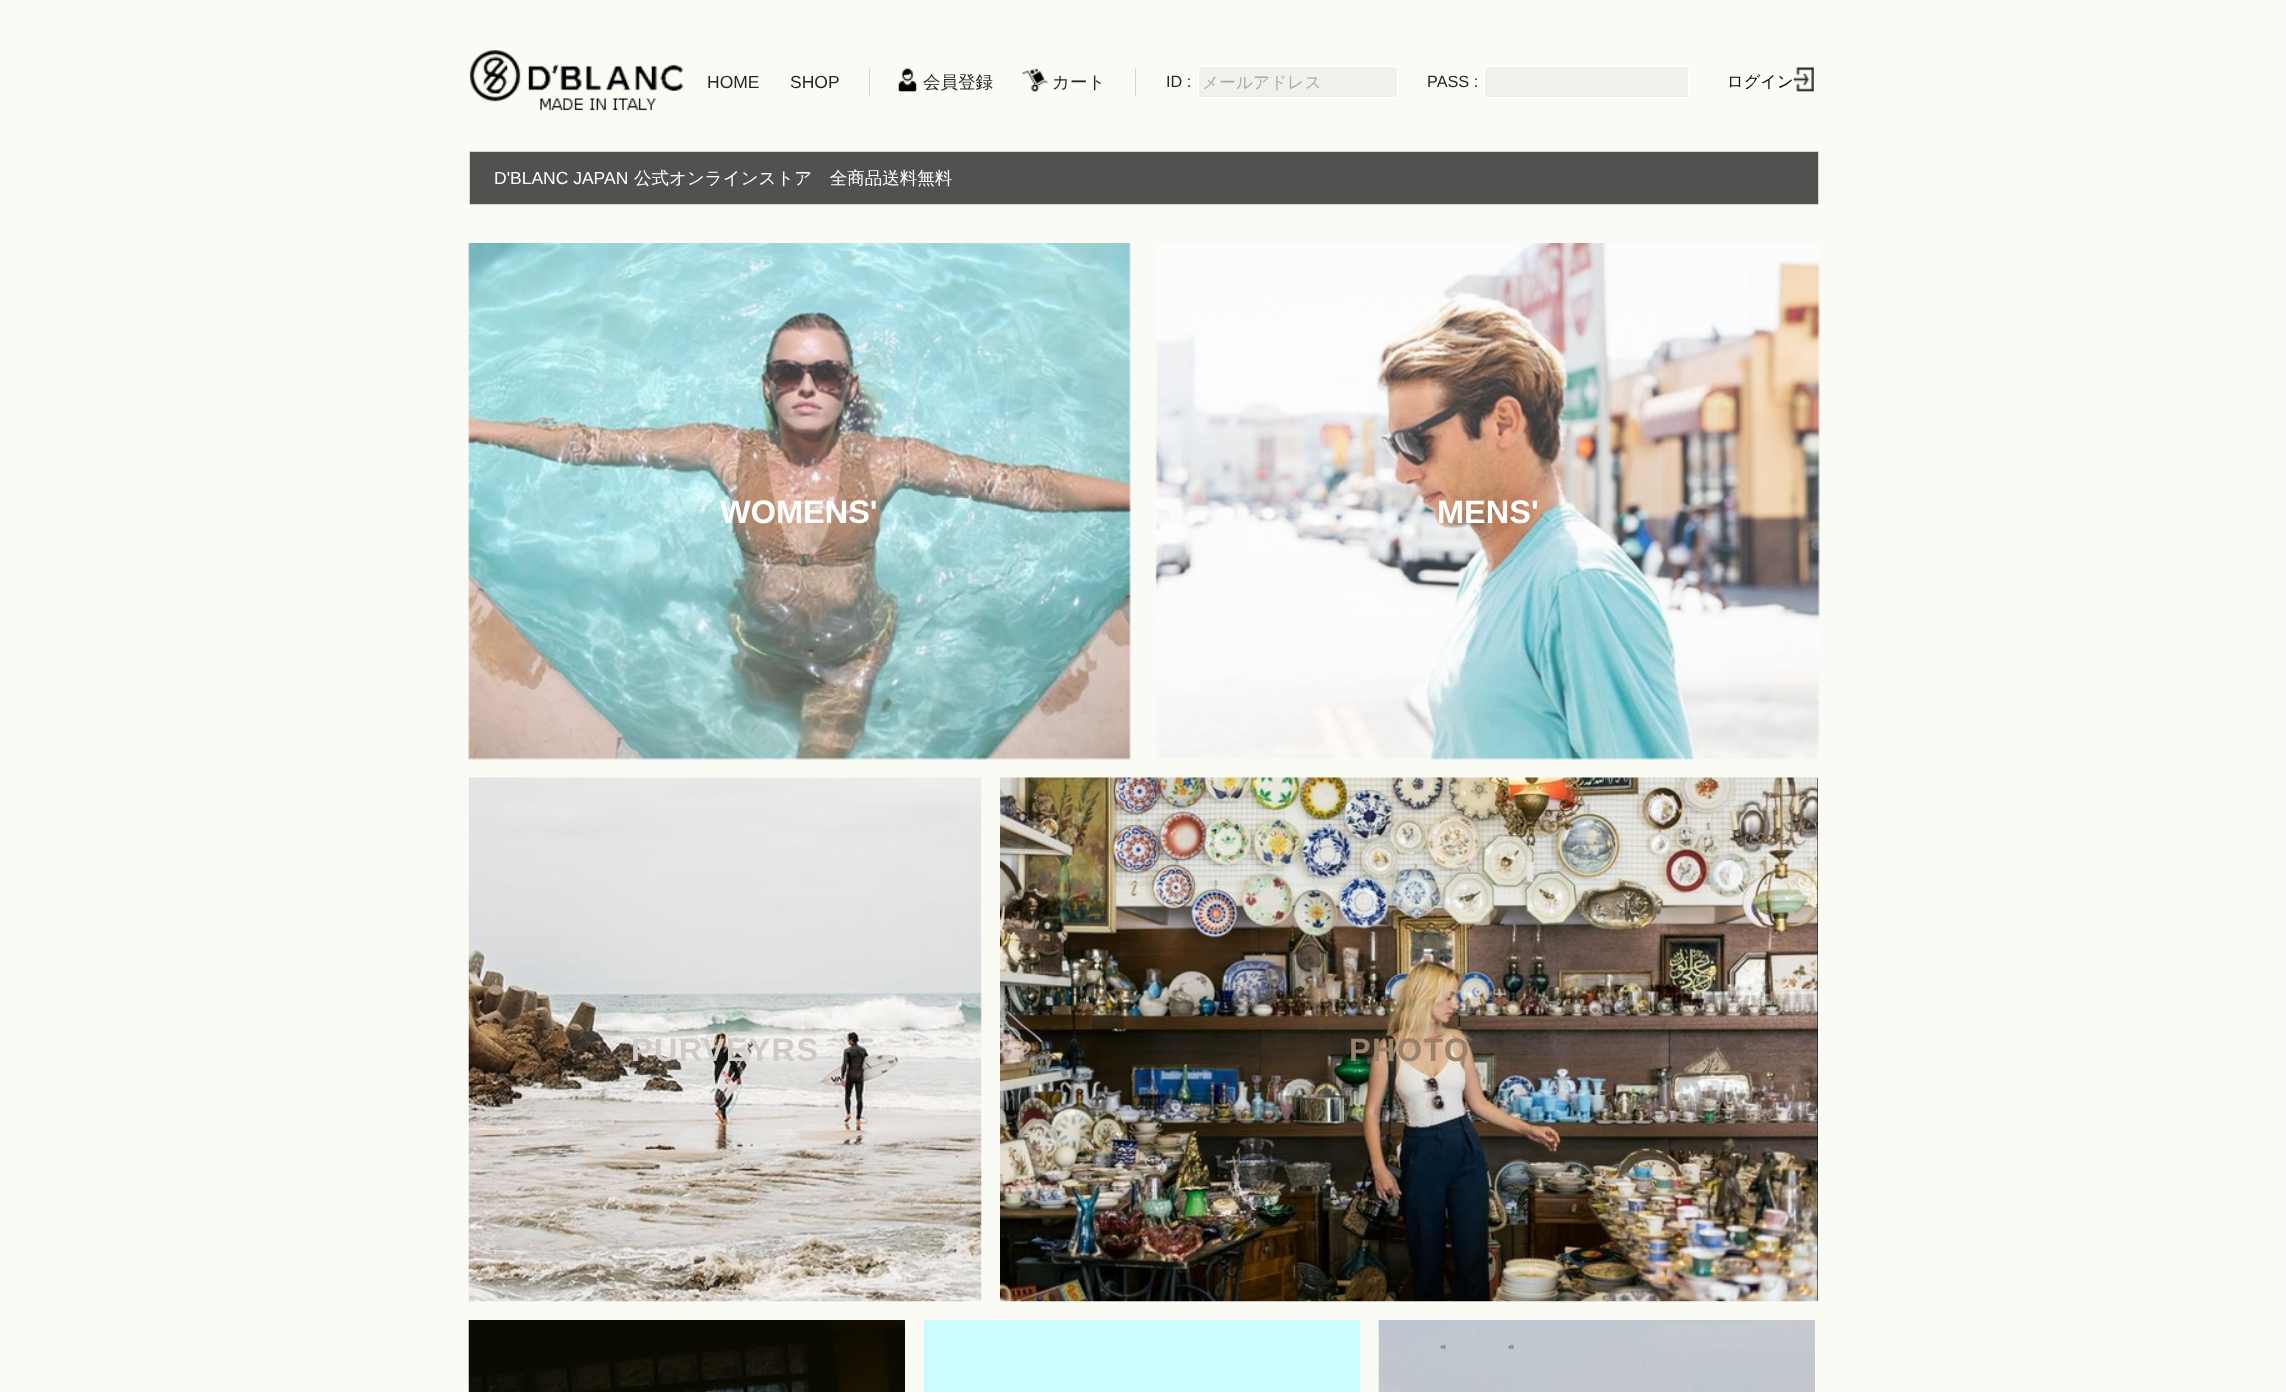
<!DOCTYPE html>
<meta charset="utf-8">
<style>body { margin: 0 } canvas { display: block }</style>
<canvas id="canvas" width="2286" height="1392"></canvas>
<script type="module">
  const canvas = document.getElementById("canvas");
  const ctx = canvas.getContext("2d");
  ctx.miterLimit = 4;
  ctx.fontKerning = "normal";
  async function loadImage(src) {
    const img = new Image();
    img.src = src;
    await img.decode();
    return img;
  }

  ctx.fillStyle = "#fbfbf6";
  ctx.fillRect(0, 0, 2286, 1392);
  ctx.drawImage(await loadImage("img1.png"), 469, 50, 215, 61);
  ctx.font = "17.5px Liberation Sans";
  ctx.fillStyle = "#262626";
  ctx.fillText("HOME", 707, 88);
  ctx.fillText("SHOP", 790, 88);
  ctx.fillStyle = "#d5d5d3";
  ctx.fillRect(1135, 68, 1, 28);
  ctx.fillRect(869, 68, 1, 28);
  ctx.drawImage(await loadImage("img2.png"), 898, 68, 19, 24);
  ctx.font = "500 17.5px WenQuanYi Zen Hei";
  ctx.fillStyle = "#262626";
  ctx.fillText("会員登録", 923, 88);
  ctx.drawImage(await loadImage("img3.png"), 1022, 68, 26, 24);
  ctx.fillText("カート", 1052, 88);
  ctx.font = "16.25px Liberation Sans";
  ctx.fillText("ID :", 1166, 87);
  ctx.fillStyle = "#f0f0ec";
  ctx.beginPath();
  ctx.rect(1198.5, 66.5, 199, 31);
  ctx.fill();
  ctx.strokeStyle = "#ffffff";
  ctx.stroke();
  ctx.font = "500 16.75px WenQuanYi Zen Hei";
  ctx.fillStyle = "#aaaaaa";
  ctx.fillText("メールアドレス", 1202, 88);
  ctx.font = "16.25px Liberation Sans";
  ctx.fillStyle = "#262626";
  ctx.fillText("PASS :", 1427, 87);
  ctx.fillStyle = "#f0f0ec";
  ctx.beginPath();
  ctx.rect(1484.5, 66.5, 204, 31);
  ctx.fill();
  ctx.stroke();
  ctx.drawImage(await loadImage("img4.png"), 1793, 67, 21, 25);
  ctx.font = "500 16.25px WenQuanYi Zen Hei";
  ctx.fillStyle = "#000000";
  ctx.fillText("ログイン", 1727, 87);
  ctx.fillStyle = "#51514f";
  ctx.beginPath();
  ctx.rect(469.5, 151.5, 1349, 53);
  ctx.fill();
  ctx.strokeStyle = "#d5d5d3";
  ctx.stroke();
  ctx.font = "17.5px Liberation Sans";
  ctx.fillStyle = "#ffffff";
  ctx.fillText("D'BLANC JAPAN", 494, 184);
  ctx.font = "500 17.5px WenQuanYi Zen Hei";
  ctx.fillText("公式オンラインストア　全商品送料無料", 634, 184);
  ctx.fillRect(469, 243, 661, 516);
  ctx.drawImage(await loadImage("img5.png"), 468, 243, 663, 517);
  ctx.font = "bold 32.5px Liberation Sans";
  ctx.fillText("WOMENS'", 720, 523);
  ctx.fillRect(1156, 243, 663, 516);
  ctx.drawImage(await loadImage("img6.png"), 1155, 243, 665, 517);
  ctx.fillText("MENS'", 1437, 523);
  ctx.drawImage(await loadImage("img7.png"), 468, 777, 514, 525);
  ctx.letterSpacing = "1.25px";
  ctx.fillStyle = "#cecbc7";
  ctx.fillText("PURVEYRS", 631, 1061);
  ctx.fillStyle = "#000000";
  ctx.fillRect(1817, 778, 1, 523);
  ctx.drawImage(await loadImage("img8.png"), 1000, 777, 818, 525);
  ctx.fillStyle = "#9a8169";
  ctx.fillText("PHOTO", 1349, 1061);
  ctx.drawImage(await loadImage("img9.png"), 468, 1320, 437, 72);
  ctx.drawImage(await loadImage("img10.png"), 923, 1320, 437, 72);
  ctx.drawImage(await loadImage("img11.png"), 1378, 1320, 437, 72);
</script>
